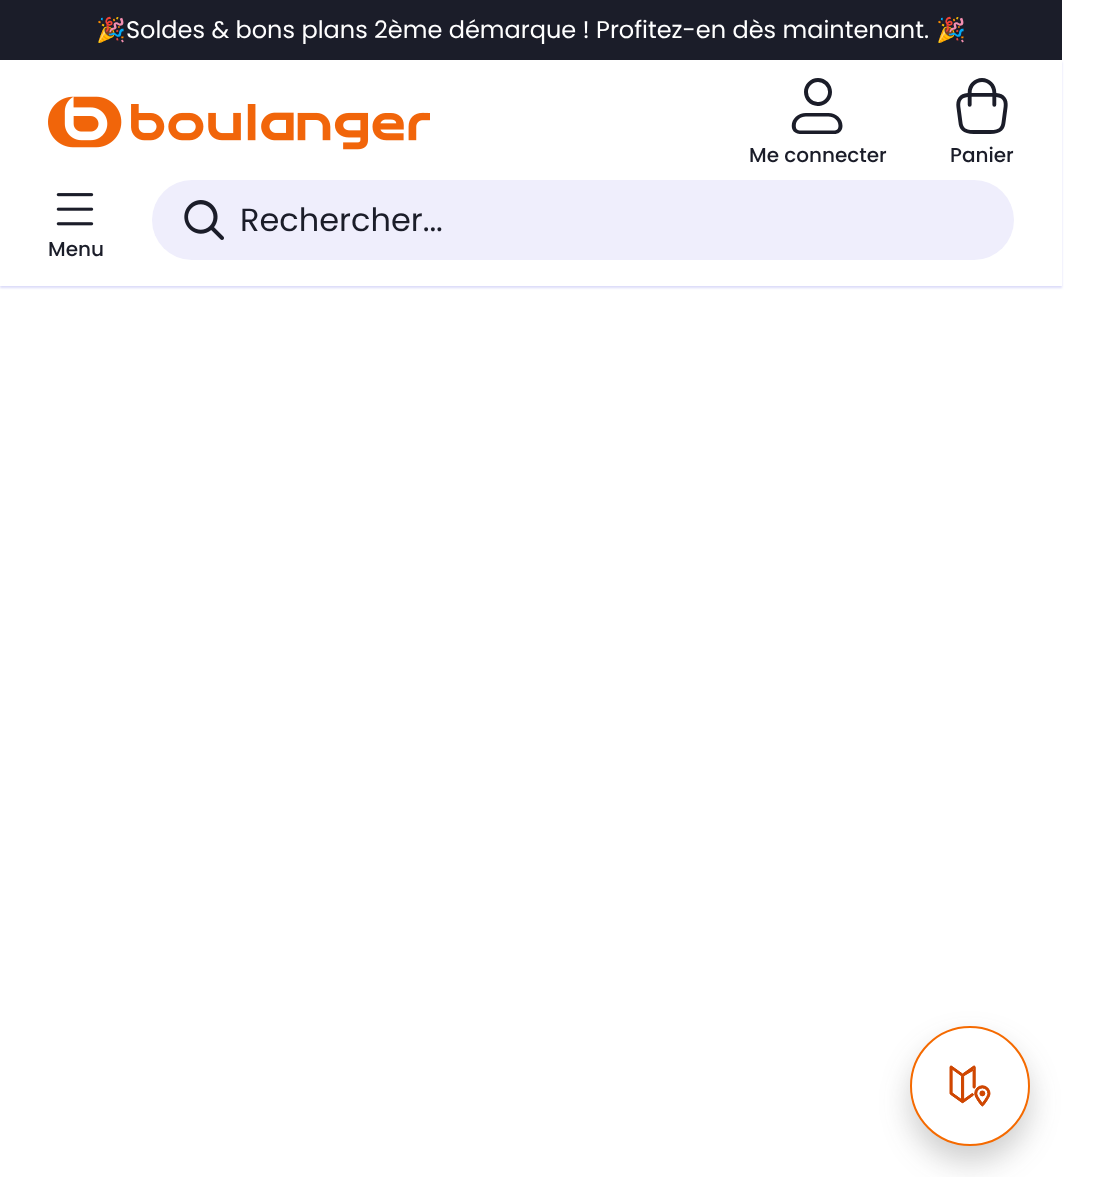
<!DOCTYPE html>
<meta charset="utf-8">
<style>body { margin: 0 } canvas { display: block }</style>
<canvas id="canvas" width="1098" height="1177"></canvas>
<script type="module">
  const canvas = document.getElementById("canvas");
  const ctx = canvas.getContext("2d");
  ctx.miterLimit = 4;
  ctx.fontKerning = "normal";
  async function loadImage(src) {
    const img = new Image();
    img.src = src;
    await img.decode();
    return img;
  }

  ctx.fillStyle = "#ffffff";
  ctx.fillRect(0, 0, 1098, 1177);
  ctx.fillStyle = "#1b1d29";
  ctx.fillRect(0, 0, 1062, 60);
  ctx.font = "24px Noto Color Emoji";
  ctx.fillStyle = "#ffffff";
  ctx.fillText("🎉", 96, 38);
  ctx.save();
  ctx.beginPath();
  ctx.rect(96, 16, 870, 28);
  ctx.clip();
  ctx.font = "24px Poppins";
  ctx.fillText("Soldes & bons plans 2ème démarque !", 126, 38);
  ctx.restore();
  ctx.font = "24px Poppins";
  ctx.fillText("Profitez-en dès maintenant.", 596, 38);
  ctx.font = "24px Noto Color Emoji";
  ctx.fillText("🎉", 936, 38);
  ctx.save();
  ctx.beginPath();
  ctx.moveTo(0, 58);
  ctx.lineTo(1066, 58);
  ctx.lineTo(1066, 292);
  ctx.lineTo(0, 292);
  ctx.closePath();
  ctx.moveTo(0, 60);
  ctx.lineTo(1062, 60);
  ctx.lineTo(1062, 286);
  ctx.lineTo(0, 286);
  ctx.closePath();
  ctx.clip("evenodd");
  ctx.fillStyle = "#dbdbf9";
  ctx.filter = "blur(1px)";
  ctx.beginPath();
  ctx.rect(0, 62, 1062, 226);
  ctx.fill();
  ctx.filter = "none";
  ctx.restore();
  ctx.drawImage(await loadImage("img1.png"), 48, 96, 382, 54);
  ctx.drawImage(await loadImage("img2.png"), 791, 78, 52, 56);
  ctx.font = "500 20px Poppins";
  ctx.fillStyle = "#1b1d29";
  ctx.fillText("Me connecter", 749, 162);
  ctx.drawImage(await loadImage("img3.png"), 956, 78, 52, 56);
  ctx.fillText("Panier", 950, 162);
  ctx.fillStyle = "#efeefc";
  ctx.beginPath();
  ctx.roundRect(152, 180, 88, 80, [40, 0, 0, 40]);
  ctx.fill();
  ctx.drawImage(await loadImage("img4.png"), 184, 200, 40, 40);
  ctx.beginPath();
  ctx.roundRect(240, 180, 774, 80, [0, 40, 40, 0]);
  ctx.fill();
  ctx.font = "32px Poppins";
  ctx.fillStyle = "#1b1d29";
  ctx.fillText("Rechercher...", 240, 231);
  ctx.drawImage(await loadImage("img5.png"), 56, 193, 38, 33);
  ctx.font = "500 20px Poppins";
  ctx.fillText("Menu", 48, 256);
  ctx.fillStyle = "rgba(59, 59, 59, 0.25)";
  ctx.filter = "blur(15px)";
  ctx.beginPath();
  ctx.roundRect(910, 1042, 120, 120, 60);
  ctx.fill();
  ctx.filter = "none";
  ctx.fillStyle = "#ffffff";
  ctx.beginPath();
  ctx.arc(970, 1086, 59, 0, Math.PI * 2);
  ctx.fill();
  ctx.strokeStyle = "#f56a00";
  ctx.lineWidth = 2;
  ctx.stroke();
  ctx.drawImage(await loadImage("img6.png"), 949, 1065, 42, 42);
</script>
